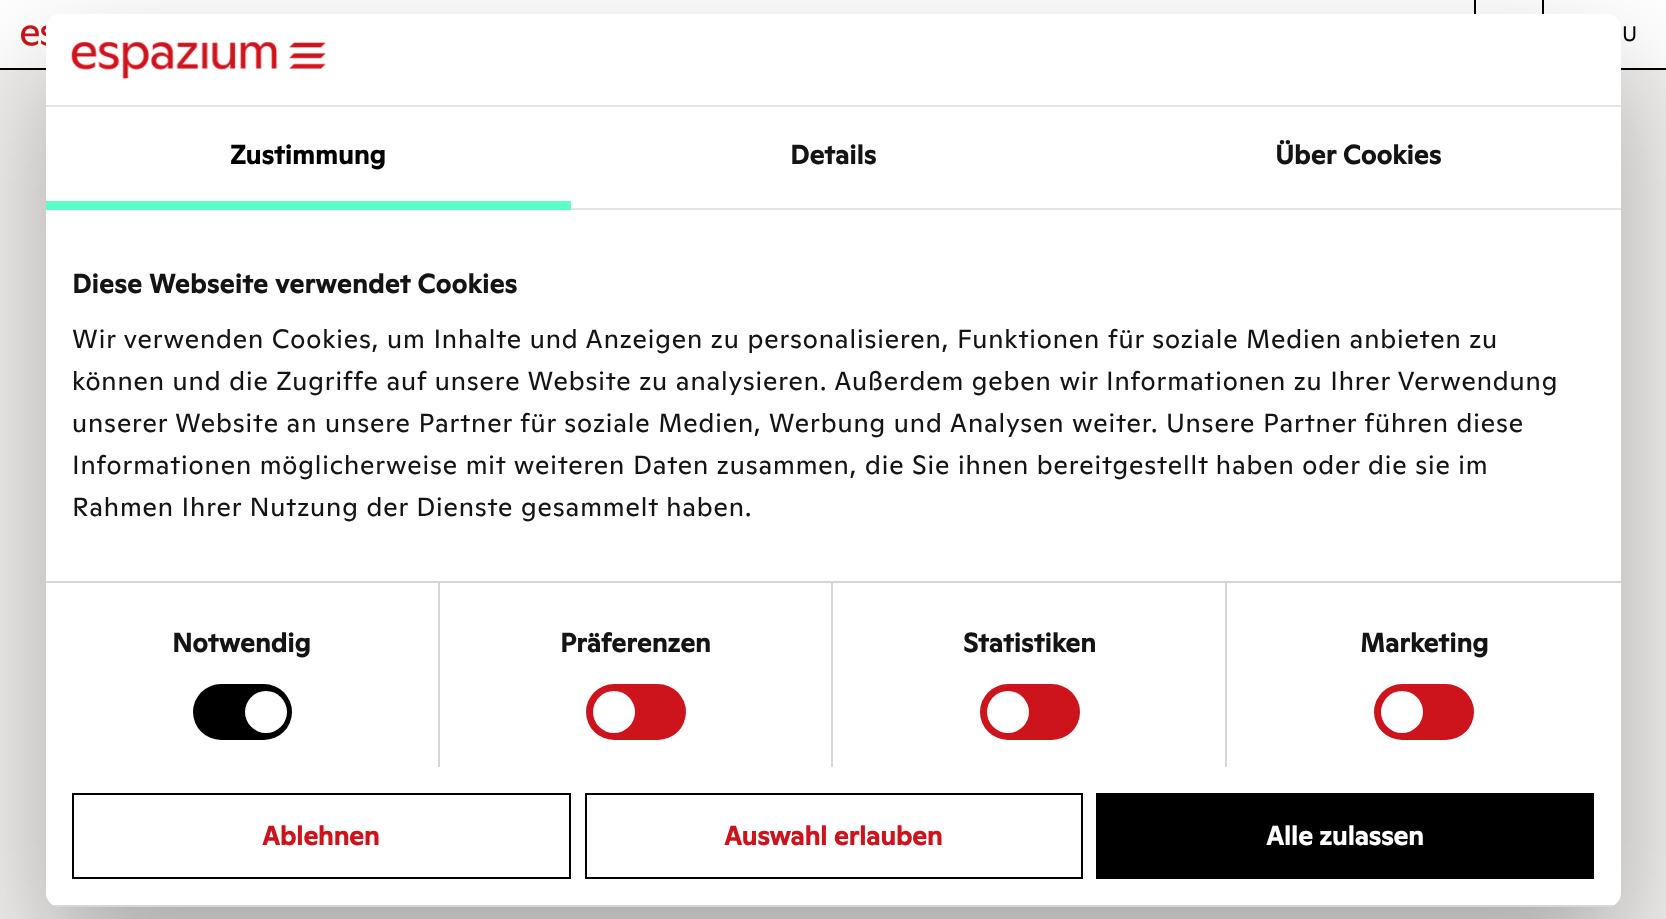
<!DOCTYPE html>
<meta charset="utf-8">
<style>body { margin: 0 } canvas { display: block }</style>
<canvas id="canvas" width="1666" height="919"></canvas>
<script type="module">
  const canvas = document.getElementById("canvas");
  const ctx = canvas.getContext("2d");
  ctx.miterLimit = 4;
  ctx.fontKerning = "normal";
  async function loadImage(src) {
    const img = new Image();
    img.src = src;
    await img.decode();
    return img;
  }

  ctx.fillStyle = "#f2f0ef";
  ctx.fillRect(0, 0, 1666, 919);
  ctx.fillStyle = "#ffffff";
  ctx.fillRect(0, 0, 1666, 68);
  ctx.fillStyle = "#000000";
  ctx.fillRect(0, 68, 1666, 2);
  ctx.fillRect(1542, 0, 2, 14);
  ctx.fillRect(1474, 0, 2, 14);
  ctx.drawImage(await loadImage("img1.png"), 21, 25, 26, 21);
  ctx.font = "21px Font";
  ctx.fillText("U", 1622, 41);
  ctx.fillStyle = "rgba(0, 0, 0, 0.3)";
  ctx.filter = "blur(59.5px)";
  ctx.beginPath();
  ctx.roundRect(46, 70, 1575, 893, 14);
  ctx.fill();
  ctx.filter = "none";
  ctx.fillStyle = "#ffffff";
  ctx.beginPath();
  ctx.roundRect(46, 14, 1575, 893, 14);
  ctx.fill();
  ctx.fillStyle = "#e0e6e4";
  ctx.fillRect(46, 105, 1575, 2);
  ctx.drawImage(await loadImage("img2.png"), 71, 42, 255, 37);
  ctx.fillStyle = "#5dffc7";
  ctx.fillRect(46, 201, 525, 9);
  ctx.letterSpacing = "0.25px";
  ctx.font = "bold 26.25px Font";
  ctx.fillStyle = "#000000";
  ctx.fillText("Zustimmung", 230, 164);
  ctx.fillStyle = "#e0e6e4";
  ctx.fillRect(571, 208, 1050, 2);
  ctx.fillStyle = "#141414";
  ctx.fillText("Details", 790, 164);
  ctx.fillText("Über Cookies", 1275, 164);
  ctx.fillStyle = "#d6d6d6";
  ctx.fillRect(46, 581, 1575, 2);
  ctx.letterSpacing = "0.45px";
  ctx.fillStyle = "#141414";
  ctx.fillText("Diese Webseite verwendet Cookies", 72, 293);
  ctx.letterSpacing = "0.88px";
  ctx.font = "26.25px Font";
  ctx.fillText("Wir verwenden Cookies, um Inhalte und Anzeigen zu personalisieren, Funktionen für soziale Medien anbieten zu", 72, 348);
  ctx.fillText("können und die Zugriffe auf unsere Website zu analysieren. Außerdem geben wir Informationen zu Ihrer Verwendung", 72, 390);
  ctx.fillText("unserer Website an unsere Partner für soziale Medien, Werbung und Analysen weiter. Unsere Partner führen diese", 72, 432);
  ctx.fillText("Informationen möglicherweise mit weiteren Daten zusammen, die Sie ihnen bereitgestellt haben oder die sie im", 72, 474);
  ctx.fillText("Rahmen Ihrer Nutzung der Dienste gesammelt haben.", 72, 516);
  ctx.fillStyle = "#d6d6d6";
  ctx.fillRect(438, 583, 2, 184);
  ctx.letterSpacing = "0.25px";
  ctx.font = "bold 26.25px Font";
  ctx.fillStyle = "#141414";
  ctx.fillText("Notwendig", 172, 652);
  ctx.fillStyle = "#000000";
  ctx.beginPath();
  ctx.roundRect(193, 684, 99, 56, 28);
  ctx.fill();
  ctx.fillStyle = "#ffffff";
  ctx.beginPath();
  ctx.arc(266, 712, 21, 0, Math.PI * 2);
  ctx.fill();
  ctx.fillStyle = "#d6d6d6";
  ctx.fillRect(831, 583, 2, 184);
  ctx.fillStyle = "#141414";
  ctx.fillText("Präferenzen", 560, 652);
  ctx.fillStyle = "#cd141d";
  ctx.beginPath();
  ctx.roundRect(586, 684, 100, 56, 28);
  ctx.fill();
  ctx.fillStyle = "#ffffff";
  ctx.beginPath();
  ctx.arc(614, 712, 21, 0, Math.PI * 2);
  ctx.fill();
  ctx.fillStyle = "#d6d6d6";
  ctx.fillRect(1225, 583, 2, 184);
  ctx.fillStyle = "#141414";
  ctx.fillText("Statistiken", 963, 652);
  ctx.fillStyle = "#cd141d";
  ctx.beginPath();
  ctx.roundRect(980, 684, 100, 56, 28);
  ctx.fill();
  ctx.fillStyle = "#ffffff";
  ctx.beginPath();
  ctx.arc(1008, 712, 21, 0, Math.PI * 2);
  ctx.fill();
  ctx.fillStyle = "#141414";
  ctx.fillText("Marketing", 1360, 652);
  ctx.fillStyle = "#cd141d";
  ctx.beginPath();
  ctx.roundRect(1374, 684, 100, 56, 28);
  ctx.fill();
  ctx.fillStyle = "#ffffff";
  ctx.beginPath();
  ctx.arc(1402, 712, 21, 0, Math.PI * 2);
  ctx.fill();
  ctx.save();
  ctx.beginPath();
  ctx.roundRect(46, 14, 1575, 893, 14);
  ctx.clip();
  ctx.fillStyle = "#d6d6d6";
  ctx.fillRect(46, 905, 1575, 2);
  ctx.restore();
  ctx.strokeStyle = "#000000";
  ctx.lineWidth = 2;
  ctx.strokeRect(73, 794, 497, 84);
  ctx.letterSpacing = "0px";
  ctx.fillStyle = "#cd141d";
  ctx.fillText("Ablehnen", 262, 845);
  ctx.strokeRect(586, 794, 496, 84);
  ctx.fillText("Auswahl erlauben", 724, 845);
  ctx.fillStyle = "#000000";
  ctx.fillRect(1096, 793, 498, 86);
  ctx.fillStyle = "#ffffff";
  ctx.fillText("Alle zulassen", 1266, 845);
</script>
